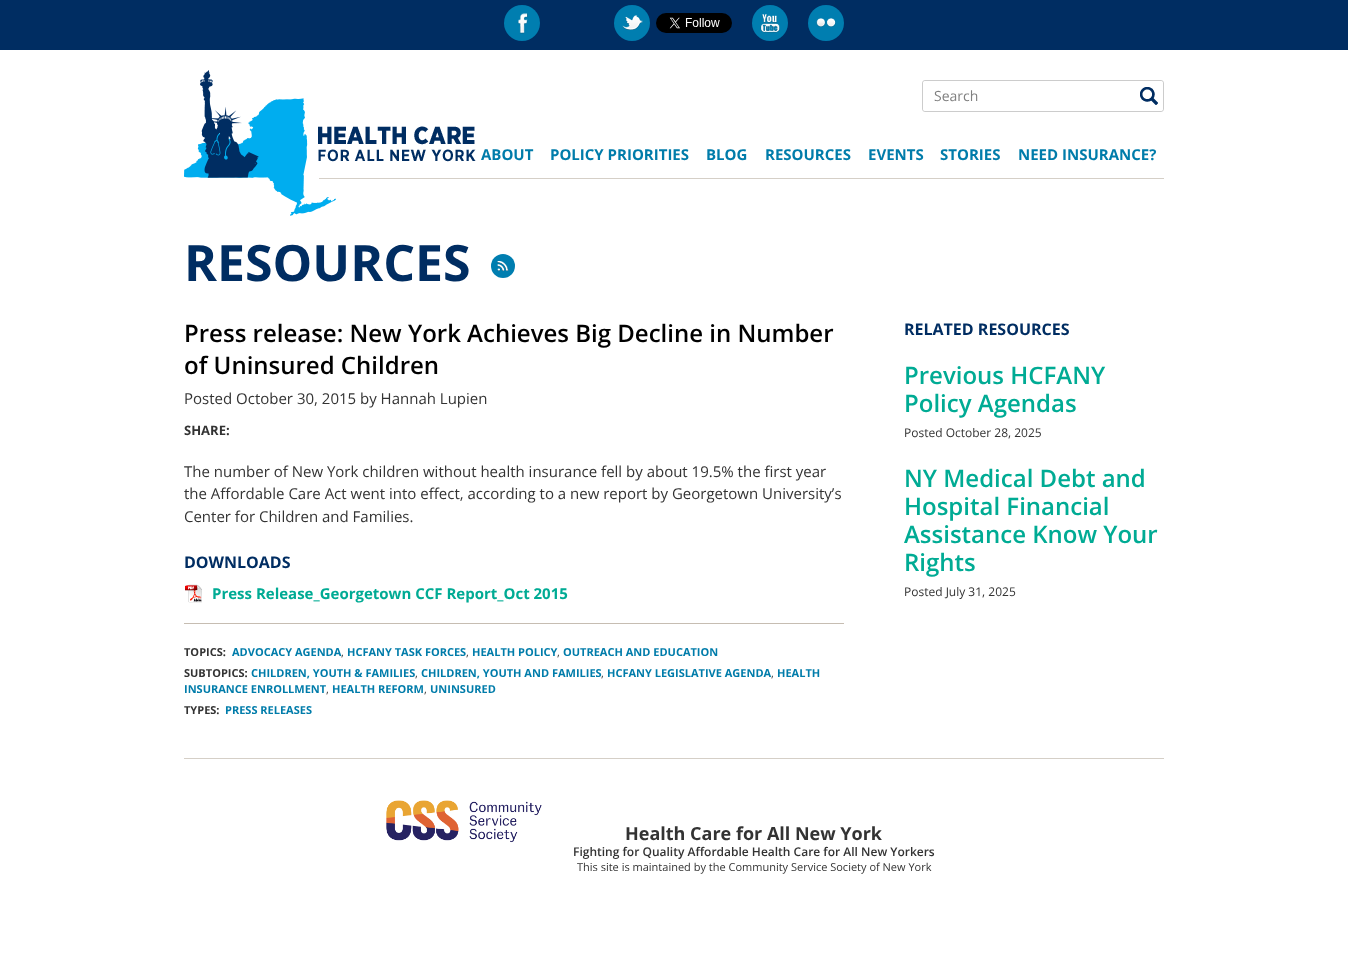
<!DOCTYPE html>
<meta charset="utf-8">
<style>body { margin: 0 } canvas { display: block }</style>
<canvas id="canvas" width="1348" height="973"></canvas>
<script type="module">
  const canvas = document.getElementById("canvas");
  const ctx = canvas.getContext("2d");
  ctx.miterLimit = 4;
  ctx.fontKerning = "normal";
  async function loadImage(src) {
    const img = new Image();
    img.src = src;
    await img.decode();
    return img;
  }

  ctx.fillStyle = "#ffffff";
  ctx.fillRect(0, 0, 1348, 973);
  ctx.fillStyle = "#002d62";
  ctx.fillRect(0, 0, 1348, 50);
  ctx.fillStyle = "#007eb0";
  ctx.beginPath();
  ctx.arc(522, 23, 18, 0, Math.PI * 2);
  ctx.fill();
  ctx.drawImage(await loadImage("img1.png"), 517, 13, 11, 21);
  ctx.beginPath();
  ctx.arc(632, 23, 18, 0, Math.PI * 2);
  ctx.fill();
  ctx.drawImage(await loadImage("img2.png"), 622, 15, 21, 15);
  ctx.drawImage(await loadImage("img3.png"), 656, 13, 76, 20);
  ctx.beginPath();
  ctx.arc(770, 23, 18, 0, Math.PI * 2);
  ctx.fill();
  ctx.drawImage(await loadImage("img4.png"), 760, 14, 20, 19);
  ctx.beginPath();
  ctx.arc(826, 23, 18, 0, Math.PI * 2);
  ctx.fill();
  ctx.drawImage(await loadImage("img5.png"), 816, 18, 20, 9);
  ctx.fillStyle = "#d5cfc7";
  ctx.fillRect(319, 178, 845, 1);
  ctx.drawImage(await loadImage("img6.png"), 184, 70, 292, 146);
  ctx.beginPath();
  ctx.roundRect(922.5, 80.5, 241, 31, 2.5);
  ctx.strokeStyle = "#cccccc";
  ctx.stroke();
  ctx.fillStyle = "#ffffff";
  ctx.beginPath();
  ctx.roundRect(923, 81, 240, 30, 3);
  ctx.fill();
  ctx.font = "14px Open Sans";
  ctx.fillStyle = "#808080";
  ctx.fillText("Search", 934, 101);
  ctx.drawImage(await loadImage("img7.png"), 1140, 87, 18, 18);
  ctx.font = "bold 15px Open Sans";
  ctx.fillStyle = "#007caa";
  ctx.fillText("ABOUT", 481, 160);
  ctx.fillText("POLICY PRIORITIES", 550, 160);
  ctx.fillText("BLOG", 706, 160);
  ctx.fillText("RESOURCES", 765, 160);
  ctx.fillText("EVENTS", 868, 160);
  ctx.fillText("STORIES", 940, 160);
  ctx.fillText("NEED INSURANCE?", 1018, 160);
  ctx.font = "bold 50px Open Sans";
  ctx.fillStyle = "#002d62";
  ctx.fillText("RESOURCES", 184, 281);
  ctx.fillStyle = "#007eb0";
  ctx.beginPath();
  ctx.arc(503, 266, 12, 0, Math.PI * 2);
  ctx.fill();
  ctx.drawImage(await loadImage("img8.png"), 497, 261, 12, 10);
  ctx.font = "600 24px Open Sans";
  ctx.fillStyle = "#000000";
  ctx.fillText("Press release: New York Achieves Big Decline in Number", 184, 342);
  ctx.fillText("of Uninsured Children", 184, 374);
  ctx.font = "15px Open Sans";
  ctx.fillStyle = "#333333";
  ctx.fillText("Posted October 30, 2015 by Hannah Lupien", 184, 404);
  ctx.font = "bold 13px Open Sans";
  ctx.fillText("SHARE:", 184, 435);
  ctx.font = "15px Open Sans";
  ctx.fillText("The number of New York children without health insurance fell by about 19.5% the first year", 184, 477);
  ctx.fillText("the Affordable Care Act went into effect, according to a new report by Georgetown University’s", 184, 499);
  ctx.fillText("Center for Children and Families.", 184, 522);
  ctx.font = "bold 16px Open Sans";
  ctx.fillStyle = "#002d62";
  ctx.fillText("DOWNLOADS", 184, 568);
  ctx.drawImage(await loadImage("img9.png"), 185, 584, 17, 19);
  ctx.font = "bold 15px Open Sans";
  ctx.fillStyle = "#00ab94";
  ctx.fillText("Press Release_Georgetown CCF Report_Oct 2015", 212, 599);
  ctx.fillStyle = "#c6bdb2";
  ctx.fillRect(184, 623, 660, 1);
  ctx.font = "bold 11px Open Sans";
  ctx.fillStyle = "#333333";
  ctx.fillText("TOPICS:", 184, 656);
  ctx.fillStyle = "#007caa";
  ctx.fillText("ADVOCACY AGENDA", 232, 656);
  ctx.font = "11px Open Sans";
  ctx.fillStyle = "#333333";
  ctx.fillText(",", 341, 656);
  ctx.font = "bold 11px Open Sans";
  ctx.fillStyle = "#007caa";
  ctx.fillText("HCFANY TASK FORCES", 347, 656);
  ctx.font = "11px Open Sans";
  ctx.fillStyle = "#333333";
  ctx.fillText(",", 466, 656);
  ctx.font = "bold 11px Open Sans";
  ctx.fillStyle = "#007caa";
  ctx.fillText("HEALTH POLICY", 472, 656);
  ctx.font = "11px Open Sans";
  ctx.fillStyle = "#333333";
  ctx.fillText(",", 557, 656);
  ctx.font = "bold 11px Open Sans";
  ctx.fillStyle = "#007caa";
  ctx.fillText("OUTREACH AND EDUCATION", 563, 656);
  ctx.fillStyle = "#333333";
  ctx.fillText("SUBTOPICS:", 184, 677);
  ctx.fillStyle = "#007caa";
  ctx.fillText("CHILDREN, YOUTH & FAMILIES", 251, 677);
  ctx.font = "11px Open Sans";
  ctx.fillStyle = "#333333";
  ctx.fillText(",", 415, 677);
  ctx.font = "bold 11px Open Sans";
  ctx.fillStyle = "#007caa";
  ctx.fillText("CHILDREN, YOUTH AND FAMILIES", 421, 677);
  ctx.font = "11px Open Sans";
  ctx.fillStyle = "#333333";
  ctx.fillText(",", 601, 677);
  ctx.font = "bold 11px Open Sans";
  ctx.fillStyle = "#007caa";
  ctx.fillText("HCFANY LEGISLATIVE AGENDA", 607, 677);
  ctx.font = "11px Open Sans";
  ctx.fillStyle = "#333333";
  ctx.fillText(",", 771, 677);
  ctx.font = "bold 11px Open Sans";
  ctx.fillStyle = "#007caa";
  ctx.fillText("HEALTH", 777, 677);
  ctx.fillText("INSURANCE ENROLLMENT", 184, 693);
  ctx.font = "11px Open Sans";
  ctx.fillStyle = "#333333";
  ctx.fillText(",", 326, 693);
  ctx.font = "bold 11px Open Sans";
  ctx.fillStyle = "#007caa";
  ctx.fillText("HEALTH REFORM", 332, 693);
  ctx.font = "11px Open Sans";
  ctx.fillStyle = "#333333";
  ctx.fillText(",", 424, 693);
  ctx.font = "bold 11px Open Sans";
  ctx.fillStyle = "#007caa";
  ctx.fillText("UNINSURED", 430, 693);
  ctx.fillStyle = "#333333";
  ctx.fillText("TYPES:", 184, 714);
  ctx.fillStyle = "#007caa";
  ctx.fillText("PRESS RELEASES", 225, 714);
  ctx.font = "bold 16px Open Sans";
  ctx.fillStyle = "#002d62";
  ctx.fillText("RELATED RESOURCES", 904, 335);
  ctx.font = "600 24px Open Sans";
  ctx.fillStyle = "#00ab94";
  ctx.fillText("Previous HCFANY", 904, 384);
  ctx.fillText("Policy Agendas", 904, 412);
  ctx.font = "12px Open Sans";
  ctx.fillStyle = "#333333";
  ctx.fillText("Posted October 28, 2025", 904, 437);
  ctx.font = "600 24px Open Sans";
  ctx.fillStyle = "#00ab94";
  ctx.fillText("NY Medical Debt and", 904, 487);
  ctx.fillText("Hospital Financial", 904, 515);
  ctx.fillText("Assistance Know Your", 904, 543);
  ctx.fillText("Rights", 904, 571);
  ctx.font = "12px Open Sans";
  ctx.fillStyle = "#333333";
  ctx.fillText("Posted July 31, 2025", 904, 596);
  ctx.fillStyle = "#d5cfc7";
  ctx.fillRect(184, 758, 980, 1);
  ctx.drawImage(await loadImage("img10.png"), 386, 800, 156, 43);
  ctx.font = "bold 18px Open Sans";
  ctx.fillStyle = "#333333";
  ctx.fillText("Health Care for All New York", 625, 840);
  ctx.font = "600 12px Open Sans";
  ctx.fillText("Fighting for Quality Affordable Health Care for All New Yorkers", 573, 856);
  ctx.font = "11px Open Sans";
  ctx.fillText("This site is maintained by the Community Service Society of New York", 577, 871);
</script>
